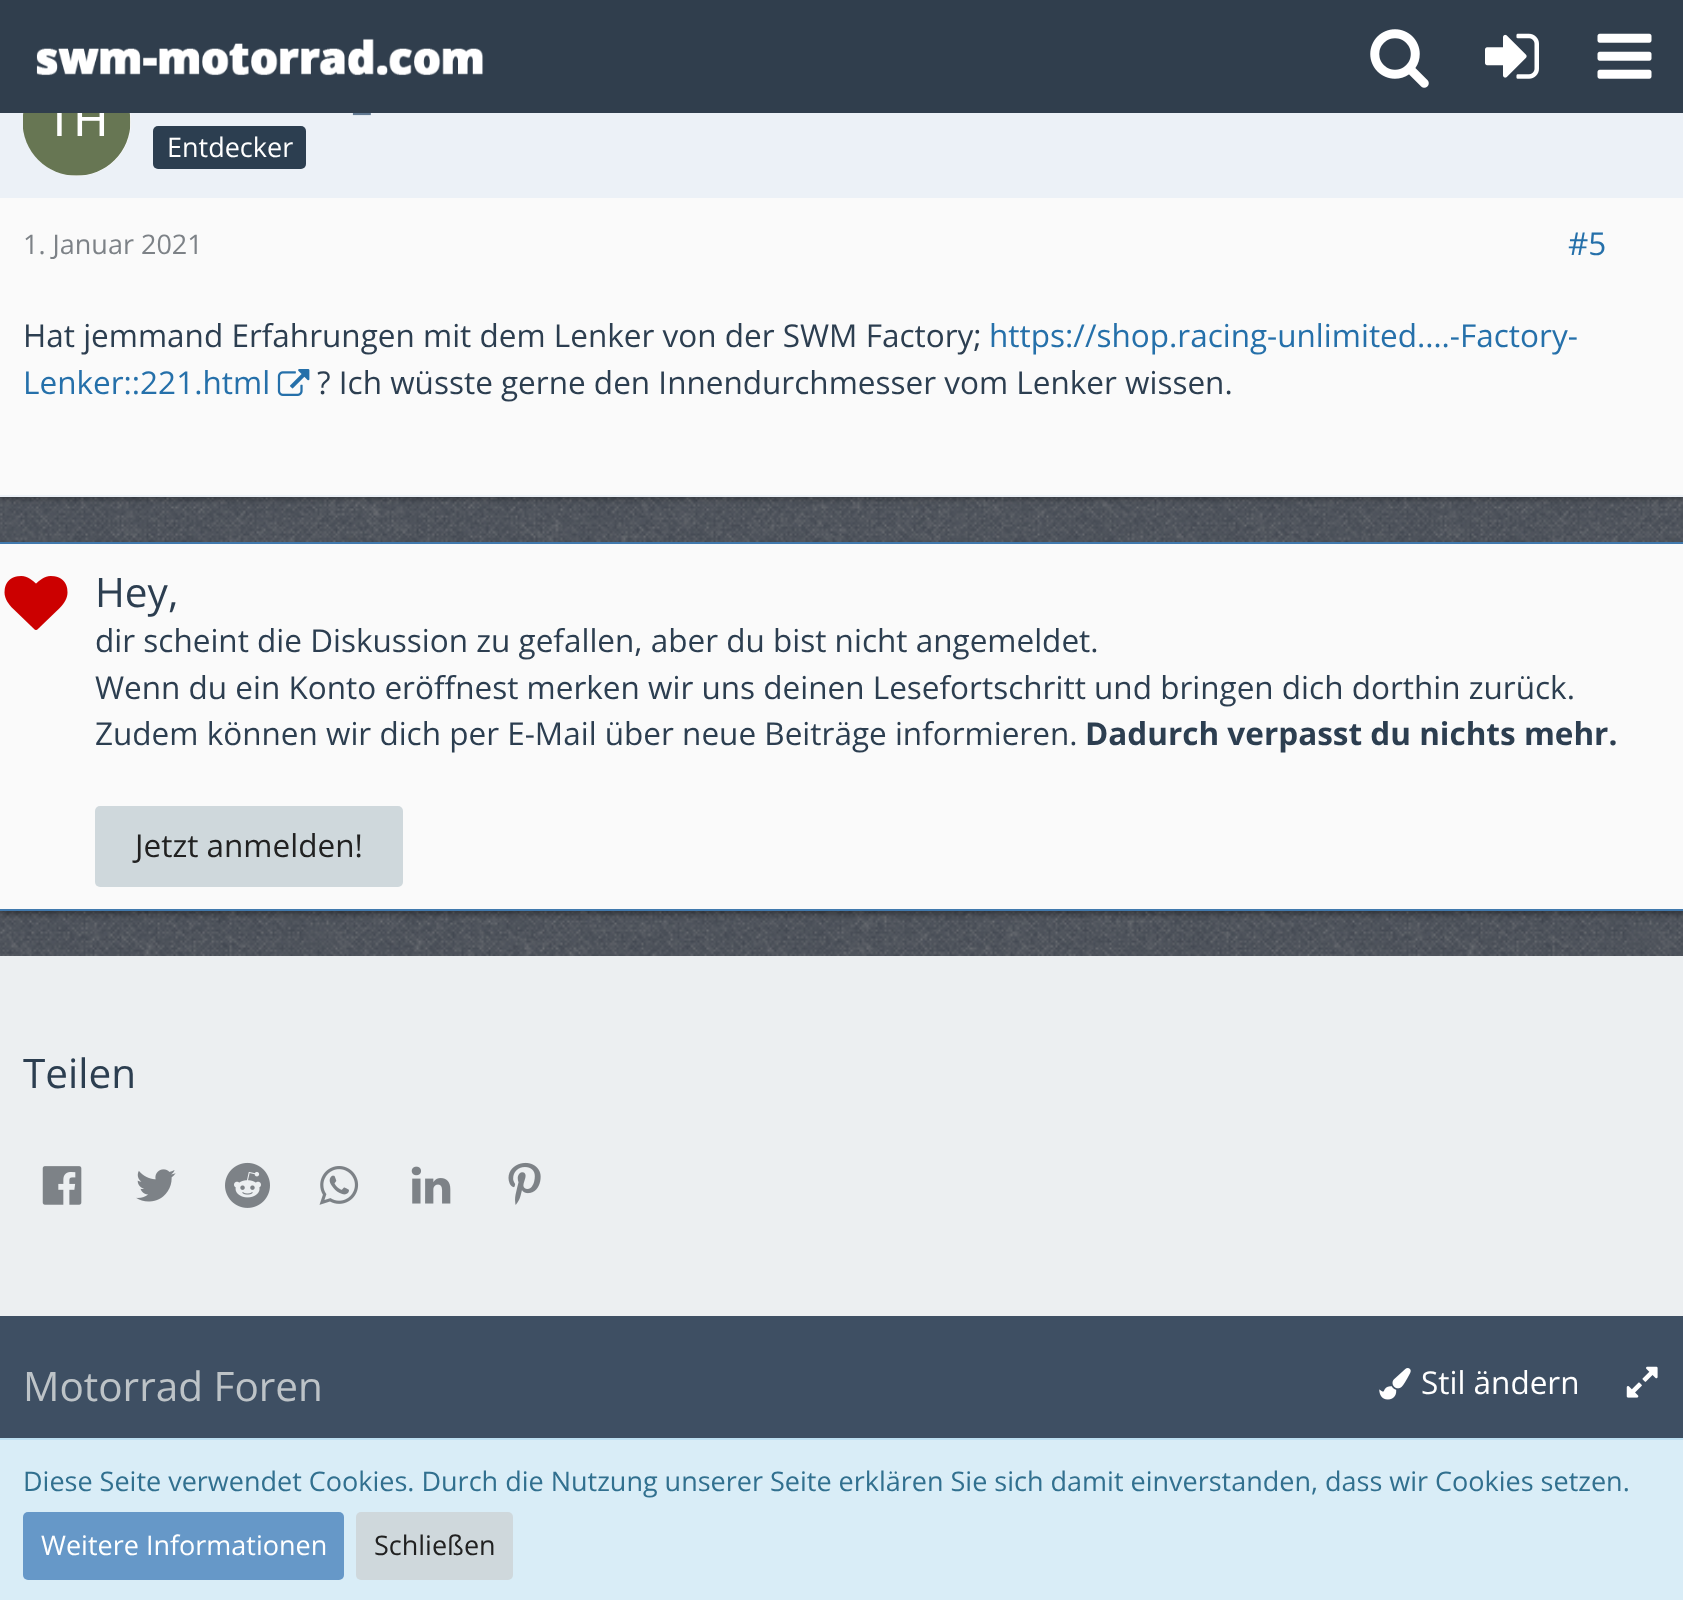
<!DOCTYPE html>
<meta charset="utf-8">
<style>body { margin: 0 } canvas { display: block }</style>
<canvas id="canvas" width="1683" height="1600"></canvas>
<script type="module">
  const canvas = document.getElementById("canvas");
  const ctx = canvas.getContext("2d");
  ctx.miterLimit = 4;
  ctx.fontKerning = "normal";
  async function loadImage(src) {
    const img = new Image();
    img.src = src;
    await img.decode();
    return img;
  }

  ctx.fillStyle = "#192335";
  ctx.fillRect(0, 0, 1683, 1600);
  ctx.drawImage(await loadImage("img1.png"), 0, 497, 1683, 459);
  ctx.fillStyle = "rgba(0, 0, 0, 0.24)";
  ctx.filter = "blur(2px)";
  ctx.beginPath();
  ctx.rect(0, -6, 1683, 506);
  ctx.fill();
  ctx.filter = "none";
  ctx.fillStyle = "#ecf1f7";
  ctx.fillRect(0, 113, 1683, 85);
  ctx.fillStyle = "#ffffff";
  ctx.beginPath();
  ctx.arc(77, 122, 54, 0, Math.PI * 2);
  ctx.fill();
  ctx.font = "40.5px Open Sans";
  ctx.fillStyle = "#617992";
  ctx.fillText("_", 353, 109);
  ctx.fillStyle = "#303e4d";
  ctx.fillRect(0, 0, 1683, 113);
  ctx.drawImage(await loadImage("img2.png"), 36, 38, 448, 38);
  ctx.drawImage(await loadImage("img3.png"), 1370, 29, 59, 59);
  ctx.drawImage(await loadImage("img4.png"), 1485, 33, 54, 46);
  ctx.drawImage(await loadImage("img5.png"), 1597, 33, 55, 46);
  ctx.fillStyle = "#fafafa";
  ctx.fillRect(0, 198, 1683, 297);
  ctx.fillStyle = "#ecf1f7";
  ctx.fillRect(0, 495, 1683, 2);
  ctx.drawImage(await loadImage("img6.png"), 23, 113, 108, 63);
  ctx.fillStyle = "#2c3e50";
  ctx.beginPath();
  ctx.roundRect(153, 126, 153, 43, 5);
  ctx.fill();
  ctx.font = "27px Open Sans";
  ctx.fillStyle = "#ffffff";
  ctx.fillText("Entdecker", 167, 157);
  ctx.fillStyle = "#7d8287";
  ctx.fillText("1. Januar 2021", 23, 254);
  ctx.font = "31.5px Open Sans";
  ctx.fillStyle = "#2570aa";
  ctx.fillText("#5", 1568, 255);
  ctx.fillStyle = "#2c3e50";
  ctx.fillText("Hat jemmand Erfahrungen mit dem Lenker von der SWM Factory;", 23, 347);
  ctx.fillStyle = "#2570aa";
  ctx.fillText("https://shop.racing-unlimited.…-Factory-", 989, 347);
  ctx.fillText("Lenker::221.html", 23, 394);
  ctx.drawImage(await loadImage("img7.png"), 277, 369, 33, 27);
  ctx.fillStyle = "#2c3e50";
  ctx.fillText("? Ich wüsste gerne den Innendurchmesser vom Lenker wissen.", 317, 394);
  ctx.fillStyle = "rgba(0, 0, 0, 0.24)";
  ctx.filter = "blur(2px)";
  ctx.beginPath();
  ctx.rect(0, 545, 1683, 369);
  ctx.fill();
  ctx.filter = "none";
  ctx.fillStyle = "rgba(0, 0, 0, 0.12)";
  ctx.filter = "blur(3.5px)";
  ctx.beginPath();
  ctx.rect(0, 545, 1683, 369);
  ctx.fill();
  ctx.filter = "none";
  ctx.fillStyle = "#fafafa";
  ctx.fillRect(0, 544, 1683, 365);
  ctx.fillStyle = "#4179ad";
  ctx.fillRect(0, 542, 1683, 2);
  ctx.fillRect(0, 909, 1683, 2);
  ctx.drawImage(await loadImage("img8.png"), 4, 576, 64, 54);
  ctx.font = "40.5px Open Sans";
  ctx.fillStyle = "#2c3e50";
  ctx.fillText("Hey,", 95, 607);
  ctx.font = "31.5px Open Sans";
  ctx.fillText("dir scheint die Diskussion zu gefallen, aber du bist nicht angemeldet.", 95, 652);
  ctx.fillText("Wenn du ein Konto eröffnest merken wir uns deinen Lesefortschritt und bringen dich dorthin zurück.", 95, 699);
  ctx.fillText("Zudem können wir dich per E-Mail über neue Beiträge informieren.", 95, 745);
  ctx.font = "bold 31.5px Open Sans";
  ctx.fillText("Dadurch verpasst du nichts mehr.", 1085, 745);
  ctx.fillStyle = "#cfd8dc";
  ctx.beginPath();
  ctx.roundRect(95, 806, 308, 81, 5);
  ctx.fill();
  ctx.font = "31.5px Open Sans";
  ctx.fillStyle = "#212121";
  ctx.fillText("Jetzt anmelden!", 135, 857);
  ctx.fillStyle = "#eceff1";
  ctx.fillRect(0, 956, 1683, 360);
  ctx.font = "40.5px Open Sans";
  ctx.fillStyle = "#2c3e50";
  ctx.fillText("Teilen", 23, 1088);
  ctx.drawImage(await loadImage("img9.png"), 42, 1166, 40, 39);
  ctx.drawImage(await loadImage("img10.png"), 136, 1169, 40, 33);
  ctx.drawImage(await loadImage("img11.png"), 225, 1162, 45, 46);
  ctx.drawImage(await loadImage("img12.png"), 319, 1166, 40, 39);
  ctx.drawImage(await loadImage("img13.png"), 411, 1166, 40, 38);
  ctx.drawImage(await loadImage("img14.png"), 508, 1162, 33, 43);
  ctx.fillStyle = "#3e4f63";
  ctx.fillRect(0, 1316, 1683, 122);
  ctx.fillStyle = "#bdc3c7";
  ctx.fillText("Motorrad Foren", 23, 1401);
  ctx.drawImage(await loadImage("img15.png"), 1379, 1368, 32, 32);
  ctx.font = "31.5px Open Sans";
  ctx.fillStyle = "#ffffff";
  ctx.fillText("Stil ändern", 1421, 1394);
  ctx.drawImage(await loadImage("img16.png"), 1626, 1366, 32, 32);
  ctx.fillStyle = "#d9edf7";
  ctx.fillRect(0, 1440, 1683, 160);
  ctx.fillStyle = "#bcdff1";
  ctx.fillRect(0, 1438, 1683, 2);
  ctx.font = "27px Open Sans";
  ctx.fillStyle = "#31708f";
  ctx.fillText("Diese Seite verwendet Cookies. Durch die Nutzung unserer Seite erklären Sie sich damit einverstanden, dass wir Cookies setzen.", 23, 1491);
  ctx.fillStyle = "#6698c8";
  ctx.beginPath();
  ctx.roundRect(23, 1512, 321, 68, 5);
  ctx.fill();
  ctx.fillStyle = "#ffffff";
  ctx.fillText("Weitere Informationen", 41, 1555);
  ctx.fillStyle = "#cfd8dc";
  ctx.beginPath();
  ctx.roundRect(356, 1512, 157, 68, 5);
  ctx.fill();
  ctx.fillStyle = "#212121";
  ctx.fillText("Schließen", 374, 1555);
</script>
